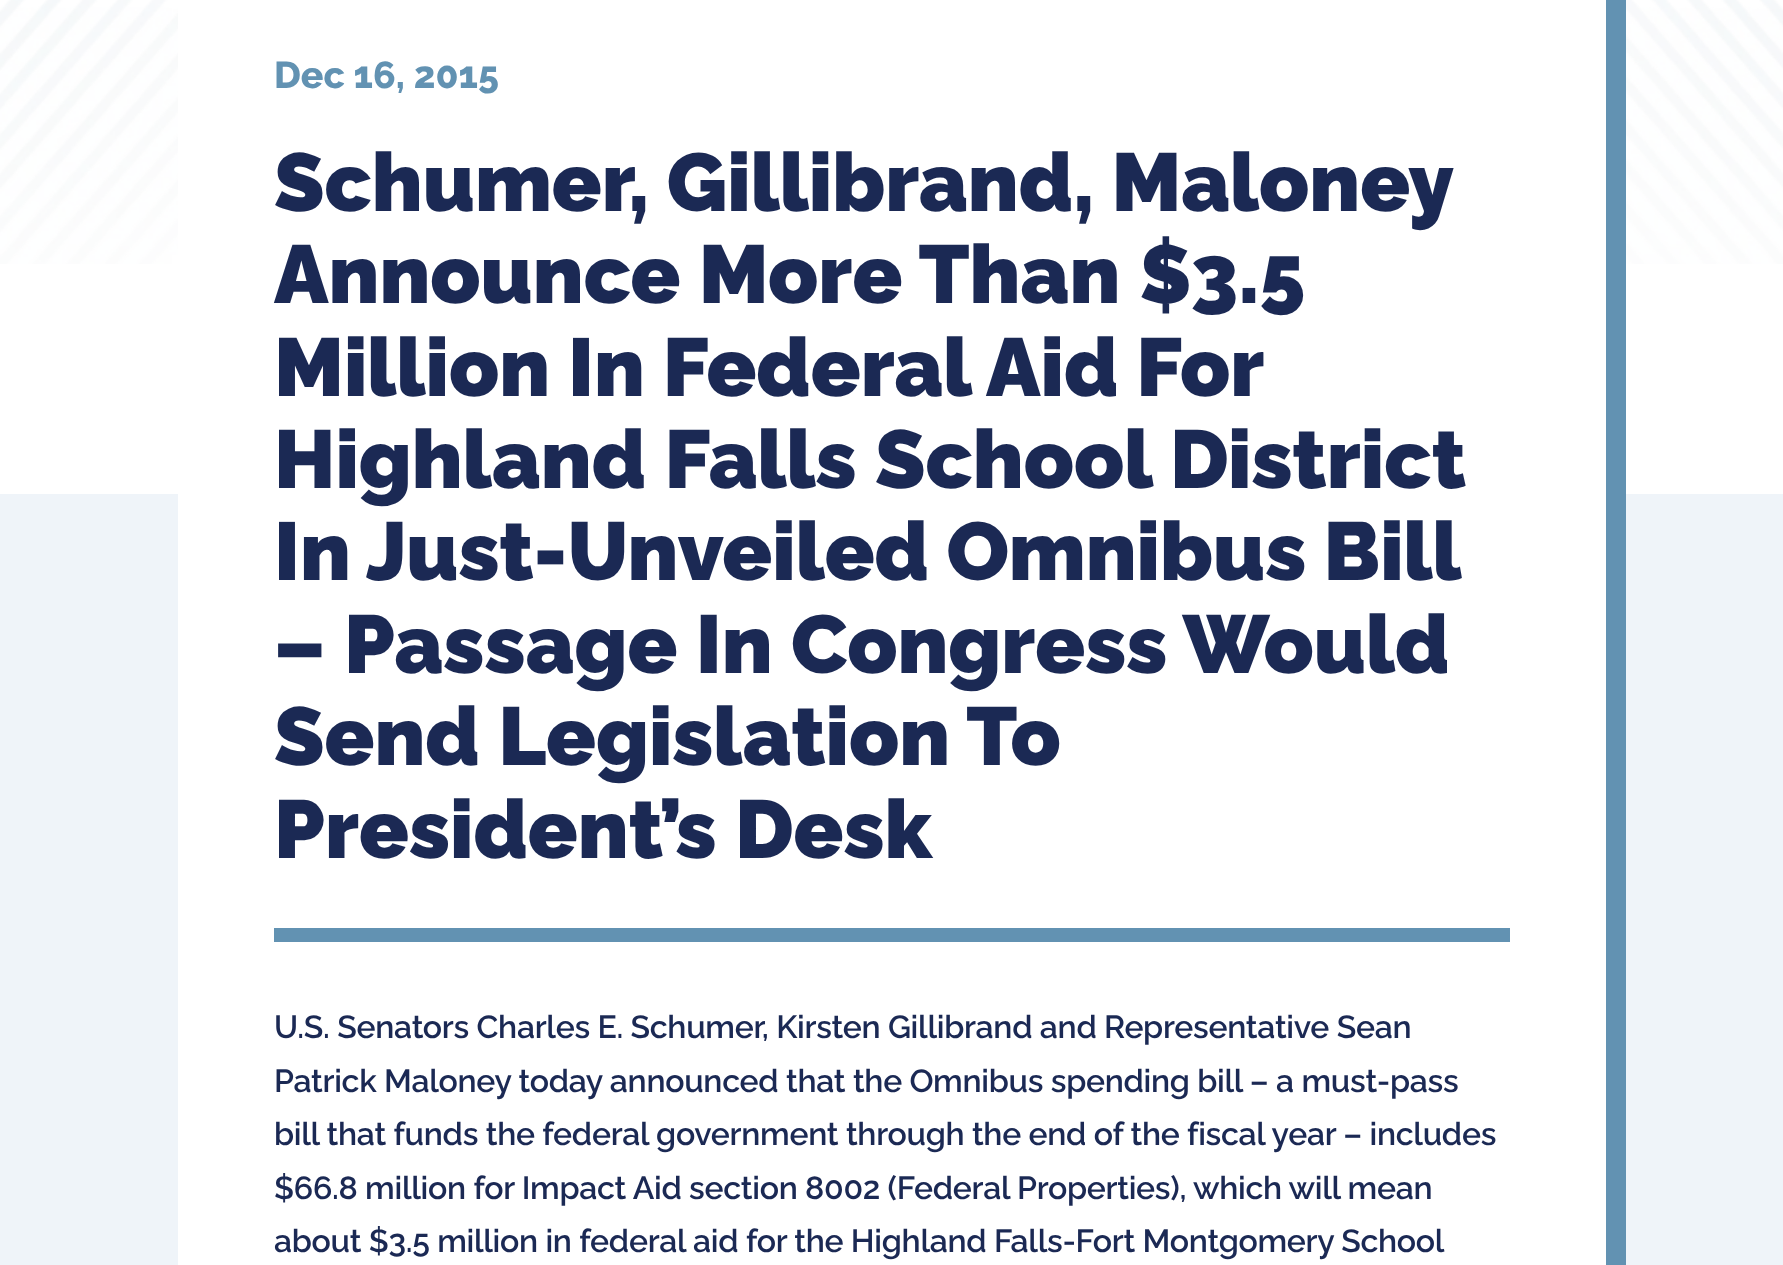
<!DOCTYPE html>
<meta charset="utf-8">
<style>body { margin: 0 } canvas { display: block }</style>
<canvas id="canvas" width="1783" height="1265"></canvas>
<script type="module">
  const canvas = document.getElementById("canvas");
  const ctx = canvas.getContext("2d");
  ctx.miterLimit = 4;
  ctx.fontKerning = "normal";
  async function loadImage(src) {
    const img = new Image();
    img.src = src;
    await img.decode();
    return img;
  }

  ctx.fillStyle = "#ffffff";
  ctx.fillRect(0, 0, 1783, 1265);
  ctx.drawImage(await loadImage("img1.png"), 0, 0, 1783, 264);
  ctx.fillStyle = "#eff4f9";
  ctx.fillRect(0, 494, 1783, 771);
  ctx.fillStyle = "#6292b2";
  ctx.beginPath();
  ctx.moveTo(198, 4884);
  ctx.lineTo(198, 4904);
  ctx.lineTo(1626, 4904);
  ctx.lineTo(1626, -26);
  ctx.lineTo(1606, -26);
  ctx.lineTo(1606, 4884);
  ctx.closePath();
  ctx.fill();
  ctx.fillStyle = "#ffffff";
  ctx.fillRect(178, 0, 1428, 1265);
  ctx.fillStyle = "#6292b2";
  ctx.fillRect(274, 928, 1236, 14);
  ctx.font = "800 37.5px Raleway";
  ctx.fillText("Dec 16, 2015", 274, 88);
  ctx.wordSpacing = "-1px";
  ctx.font = "900 81.9px Raleway";
  ctx.fillStyle = "#1b2954";
  ctx.fillText("Schumer, Gillibrand, Maloney", 274, 211);
  ctx.wordSpacing = "0px";
  ctx.fillText("Announce More Than $3.5", 274, 303);
  ctx.wordSpacing = "-0.5px";
  ctx.fillText("Million In Federal Aid For", 274, 396);
  ctx.wordSpacing = "0px";
  ctx.fillText("Highland Falls School District", 274, 488);
  ctx.wordSpacing = "-1px";
  ctx.fillText("In Just-Unveiled Omnibus Bill", 274, 580);
  ctx.wordSpacing = "0px";
  ctx.fillText("– Passage In Congress Would", 274, 673);
  ctx.fillText("Send Legislation To", 274, 765);
  ctx.fillText("President’s Desk", 274, 858);
  ctx.letterSpacing = "-0.3px";
  ctx.font = "600 32px Raleway";
  ctx.fillText("U.S. Senators Charles E. Schumer, Kirsten Gillibrand and Representative Sean", 274, 1038);
  ctx.fillText("Patrick Maloney today announced that the Omnibus spending bill – a must-pass", 274, 1092);
  ctx.fillText("bill that funds the federal government through the end of the fiscal year – includes", 274, 1145);
  ctx.fillText("$66.8 million for Impact Aid section 8002 (Federal Properties), which will mean", 274, 1199);
  ctx.fillText("about $3.5 million in federal aid for the Highland Falls-Fort Montgomery School", 274, 1252);
</script>
